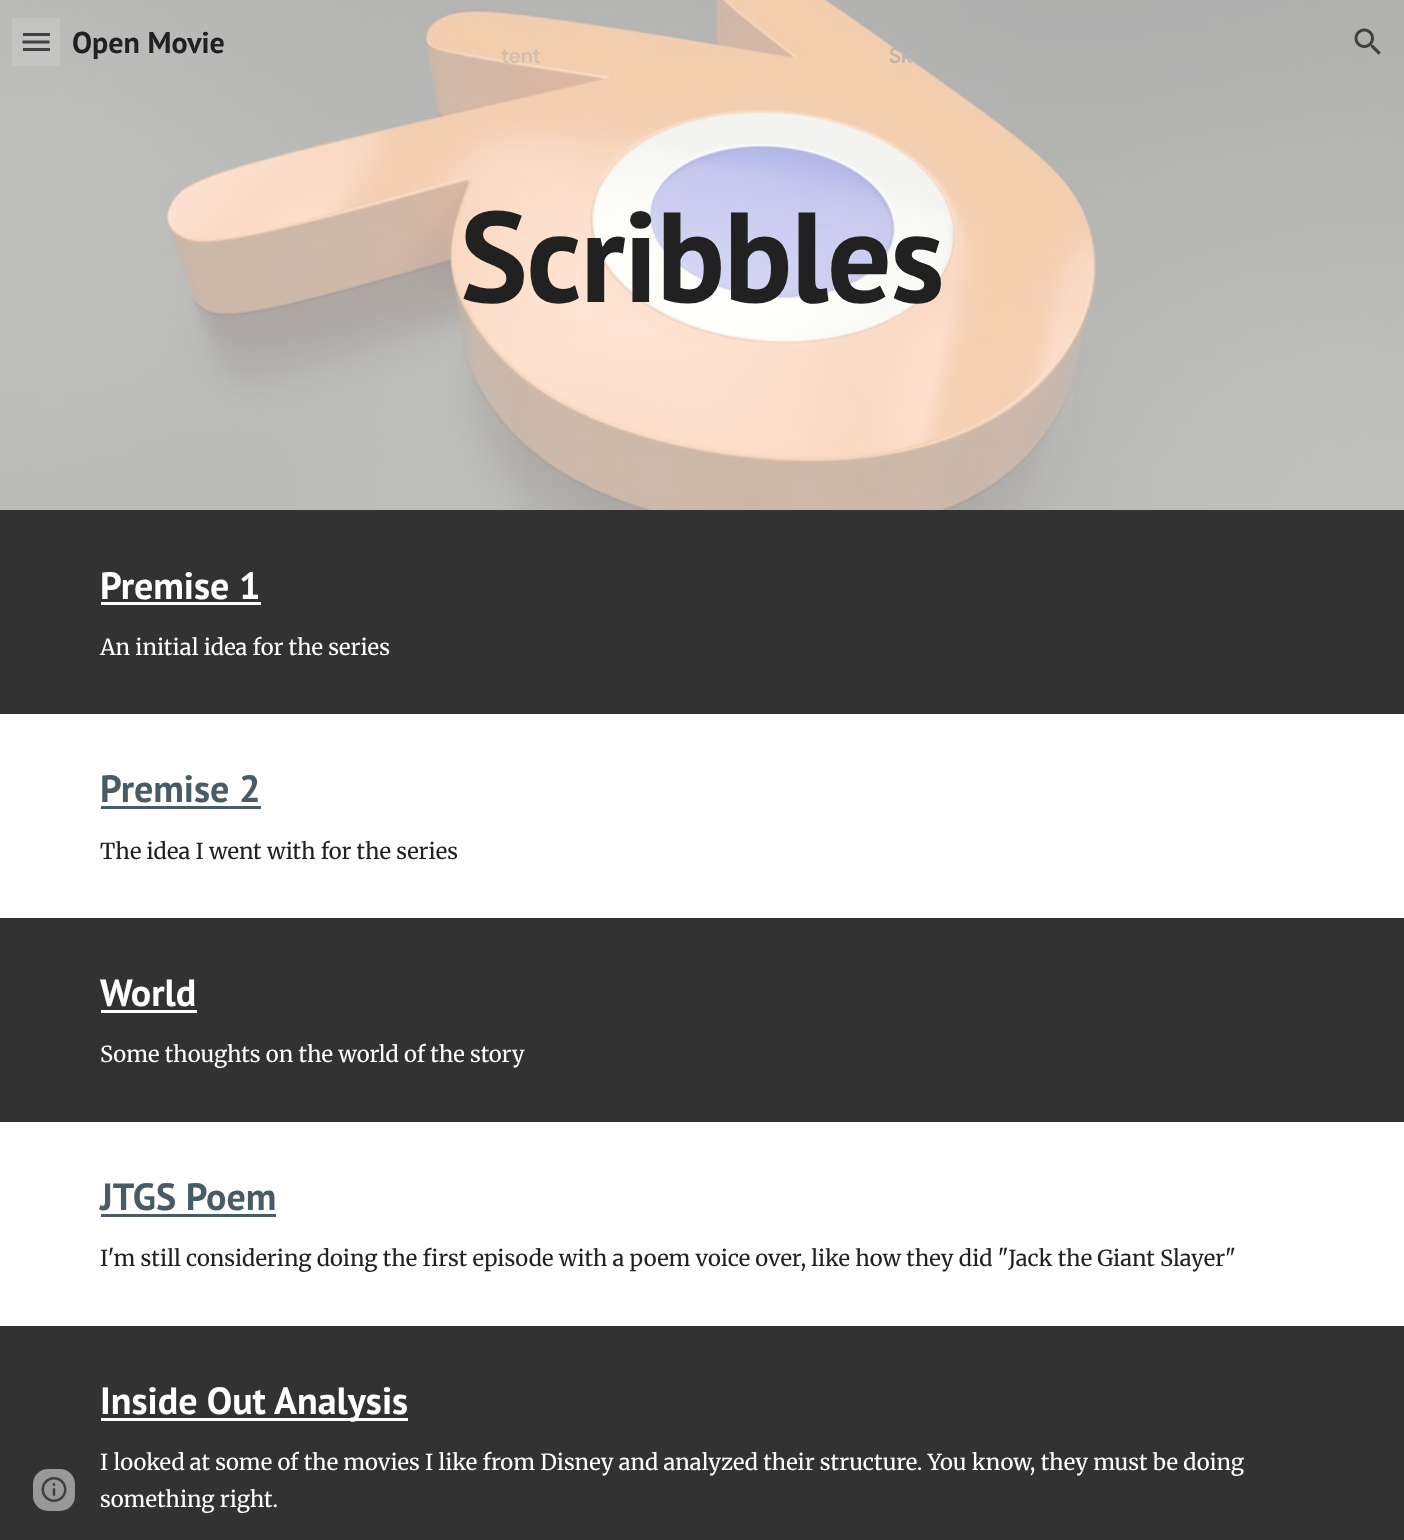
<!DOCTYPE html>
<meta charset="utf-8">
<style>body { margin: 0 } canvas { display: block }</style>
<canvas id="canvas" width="1404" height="1540"></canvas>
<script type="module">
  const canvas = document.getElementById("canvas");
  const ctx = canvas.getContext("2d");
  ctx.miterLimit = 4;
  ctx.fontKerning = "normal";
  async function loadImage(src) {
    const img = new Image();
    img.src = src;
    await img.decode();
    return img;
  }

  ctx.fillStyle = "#ffffff";
  ctx.fillRect(0, 0, 1404, 1540);
  ctx.drawImage(await loadImage("img3.png"), 0, 0, 1404, 510);
  ctx.fillStyle = "#252525";
  ctx.fillRect(23, 33, 27, 3);
  ctx.beginPath();
  ctx.moveTo(22.5, 42);
  ctx.lineTo(49.5, 42);
  ctx.strokeStyle = "#252525";
  ctx.lineWidth = 3;
  ctx.stroke();
  ctx.fillStyle = "#252625";
  ctx.fillRect(23, 48, 27, 3);
  ctx.fillStyle = "rgba(255, 255, 255, 0.12)";
  ctx.fillRect(12, 18, 48, 48);
  ctx.font = "bold 30px PT Sans";
  ctx.fillStyle = "#212121";
  ctx.fillText("Open Movie", 72, 53);
  ctx.drawImage(await loadImage("img1.png"), 1354, 28, 27, 27);
  ctx.fillStyle = "#323232";
  ctx.fillRect(0, 1326, 1404, 214);
  ctx.fillStyle = "#999999";
  ctx.beginPath();
  ctx.roundRect(33, 1469, 42, 42, 15);
  ctx.fill();
  ctx.drawImage(await loadImage("img2.png"), 41, 1477, 26, 25);
  ctx.letterSpacing = "-1.5px";
  ctx.font = "bold 128px PT Sans";
  ctx.fillStyle = "#212121";
  ctx.fillText("Scribbles", 460, 302);
  ctx.fillStyle = "#323232";
  ctx.fillRect(0, 510, 1404, 204);
  ctx.letterSpacing = "0px";
  ctx.font = "bold 38px PT Sans";
  ctx.fillStyle = "#ffffff";
  ctx.fillText("Premise 1", 100, 599);
  ctx.fillRect(101, 602, 160, 3);
  ctx.font = "22px Merriweather";
  ctx.fillText("An initial idea for the series", 100, 655);
  ctx.font = "bold 38px PT Sans";
  ctx.fillStyle = "#475c66";
  ctx.fillText("Premise 2", 100, 802);
  ctx.fillRect(101, 806, 160, 3);
  ctx.font = "22px Merriweather";
  ctx.fillStyle = "#212121";
  ctx.fillText("The idea I went with for the series", 100, 859);
  ctx.fillStyle = "#323232";
  ctx.fillRect(0, 918, 1404, 204);
  ctx.font = "bold 38px PT Sans";
  ctx.fillStyle = "#ffffff";
  ctx.fillText("World", 100, 1006);
  ctx.fillRect(101, 1010, 96, 3);
  ctx.font = "22px Merriweather";
  ctx.fillText("Some thoughts on the world of the story", 100, 1062);
  ctx.font = "bold 38px PT Sans";
  ctx.fillStyle = "#475c66";
  ctx.fillText("JTGS Poem", 100, 1210);
  ctx.fillRect(101, 1214, 175, 3);
  ctx.font = "22px Merriweather";
  ctx.fillStyle = "#212121";
  ctx.fillText("I'm still considering doing the first episode with a poem voice over, like how they did \"Jack the Giant Slayer\"", 100, 1266);
  ctx.fillStyle = "#ffffff";
  ctx.fillRect(101, 1418, 307, 3);
  ctx.font = "bold 38px PT Sans";
  ctx.fillText("Inside Out Analysis", 100, 1414);
  ctx.font = "22px Merriweather";
  ctx.fillText("I looked at some of the movies I like from Disney and analyzed their structure. You know, they must be doing", 100, 1470);
  ctx.fillText("something right.", 100, 1507);
  ctx.font = "500 21px Google Sans";
  ctx.fillStyle = "#d0bfb1";
  ctx.fillText("tent", 501, 63);
  ctx.fillStyle = "#b8b4af";
  ctx.fillText("Sk", 889, 63);
</script>
